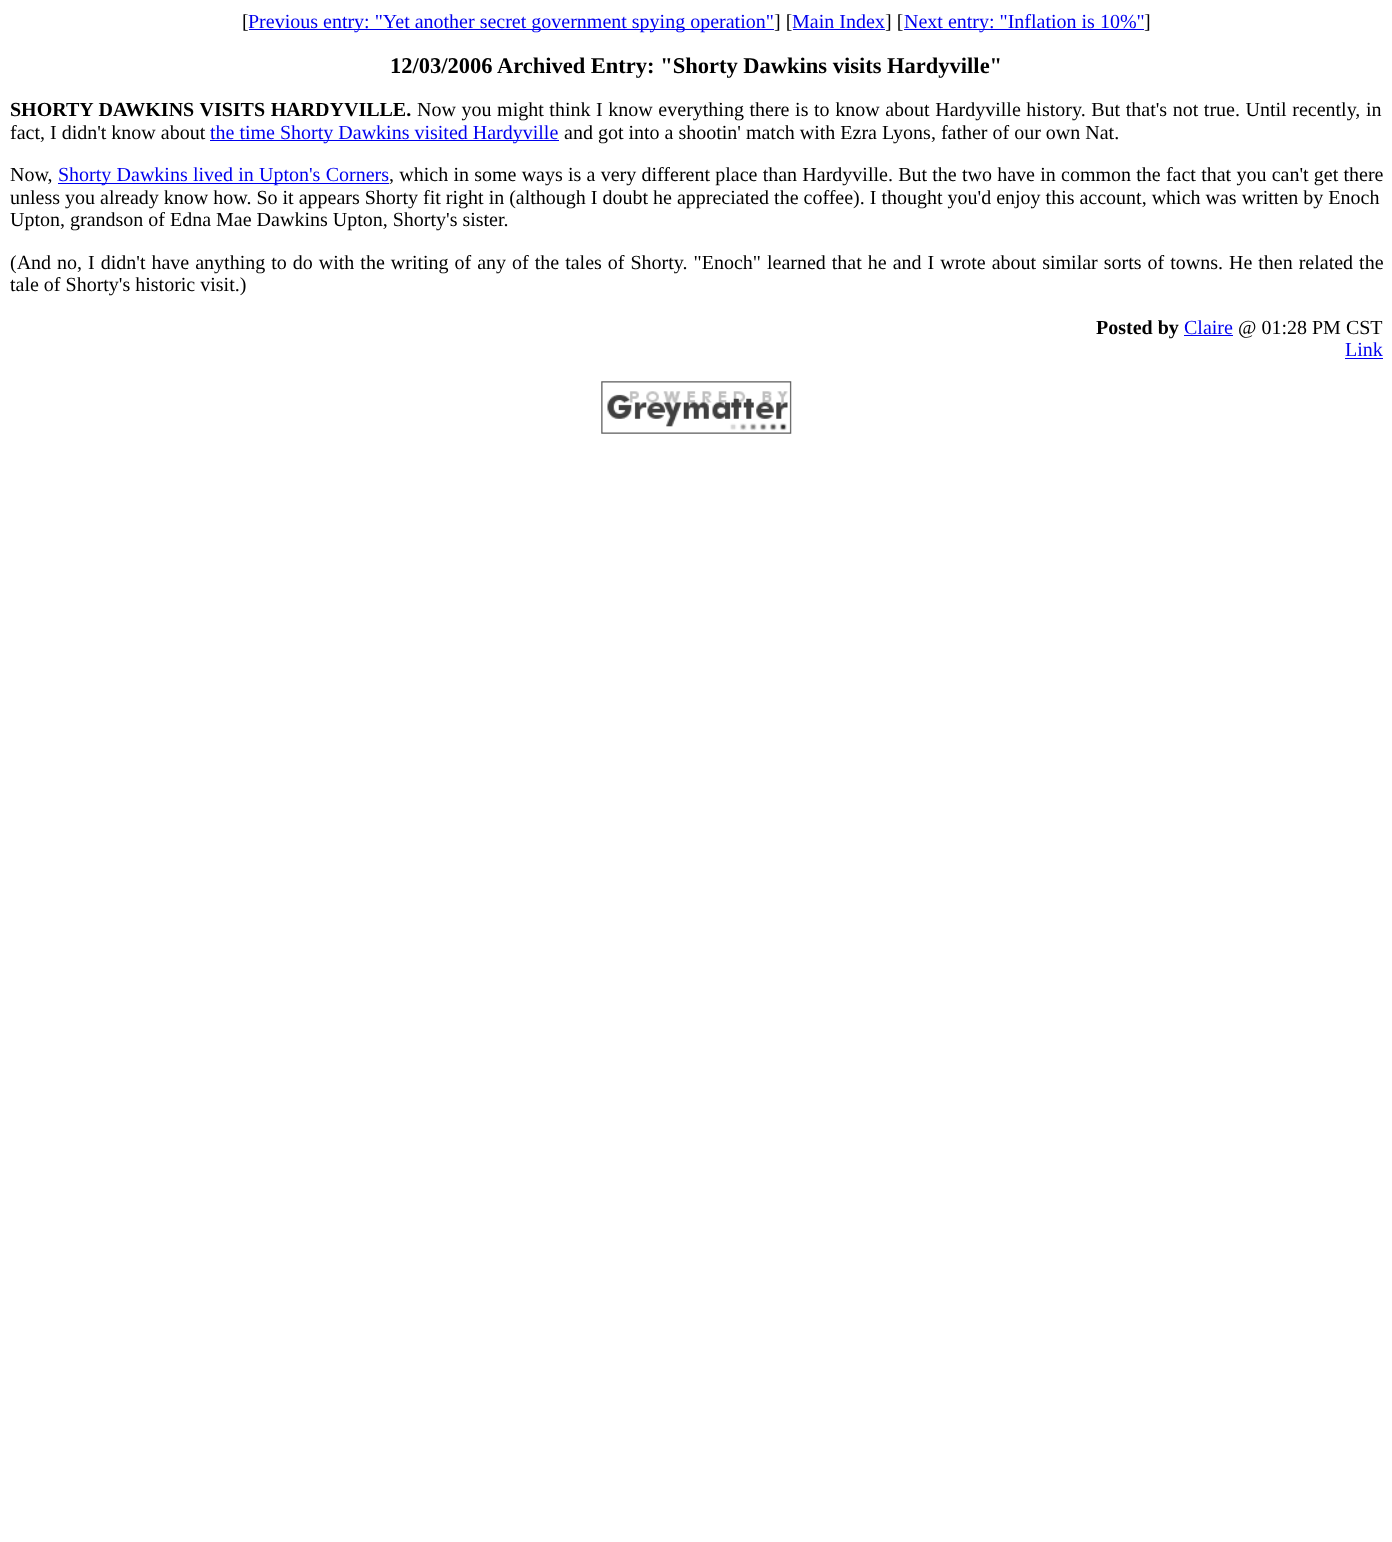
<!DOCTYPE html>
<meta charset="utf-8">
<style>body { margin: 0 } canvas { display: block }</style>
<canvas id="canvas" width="1392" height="1542"></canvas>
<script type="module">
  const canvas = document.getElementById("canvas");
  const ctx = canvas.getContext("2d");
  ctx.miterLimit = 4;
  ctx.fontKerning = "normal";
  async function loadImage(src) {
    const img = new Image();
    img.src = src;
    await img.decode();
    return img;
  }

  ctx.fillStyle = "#ffffff";
  ctx.fillRect(0, 0, 1392, 1542);
  ctx.font = "20px Liberation Serif";
  ctx.fillStyle = "#000000";
  ctx.fillText("[", 242, 28);
  ctx.fillStyle = "#0000ee";
  ctx.fillRect(249, 29, 525, 1);
  ctx.fillText("Previous entry: \"Yet another secret government spying operation\"", 248, 28);
  ctx.fillStyle = "#000000";
  ctx.fillText("] [", 774, 28);
  ctx.fillStyle = "#0000ee";
  ctx.fillText("Main Index", 792, 28);
  ctx.fillRect(793, 29, 92, 1);
  ctx.fillStyle = "#000000";
  ctx.fillText("] [", 885, 28);
  ctx.fillStyle = "#0000ee";
  ctx.fillRect(904, 29, 240, 1);
  ctx.fillText("Next entry: \"Inflation is 10%\"", 904, 28);
  ctx.fillStyle = "#000000";
  ctx.fillText("]", 1144, 28);
  ctx.font = "bold 22.5px Liberation Serif";
  ctx.fillText("12/03/2006 Archived Entry: \"Shorty Dawkins visits Hardyville\"", 390, 73);
  ctx.wordSpacing = "0.6px";
  ctx.font = "bold 20px Liberation Serif";
  ctx.fillText("SHORTY DAWKINS VISITS HARDYVILLE.", 10, 116);
  ctx.font = "20px Liberation Serif";
  ctx.fillText("Now you might think I know everything there is to know about Hardyville history. But that's not true. Until recently, in", 417, 116);
  ctx.wordSpacing = "0px";
  ctx.fillText("fact, I didn't know about", 10, 139);
  ctx.fillStyle = "#0000ee";
  ctx.fillRect(210, 140, 349, 1);
  ctx.fillText("the time Shorty Dawkins visited Hardyville", 210, 139);
  ctx.fillStyle = "#000000";
  ctx.fillText("and got into a shootin' match with Ezra Lyons, father of our own Nat.", 564, 139);
  ctx.fillText("Now,", 10, 181);
  ctx.fillStyle = "#0000ee";
  ctx.fillRect(58, 183, 331, 1);
  ctx.wordSpacing = "0.25px";
  ctx.fillText("Shorty Dawkins lived in Upton's Corners", 58, 181);
  ctx.fillStyle = "#000000";
  ctx.fillText(", which in some ways is a very different place than Hardyville. But the two have in common the fact that you can't get there", 389, 181);
  ctx.wordSpacing = "0px";
  ctx.fillText("unless you already know how. So it appears Shorty fit right in (although I doubt he appreciated the coffee). I thought you'd enjoy this account, which was written by Enoch", 10, 204);
  ctx.fillText("Upton, grandson of Edna Mae Dawkins Upton, Shorty's sister.", 10, 226);
  ctx.wordSpacing = "1px";
  ctx.fillText("(And no, I didn't have anything to do with the writing of any of the tales of Shorty. \"Enoch\" learned that he and I wrote about similar sorts of towns. He then related the", 10, 269);
  ctx.wordSpacing = "0px";
  ctx.fillText("tale of Shorty's historic visit.)", 10, 291);
  ctx.font = "bold 20px Liberation Serif";
  ctx.fillText("Posted by", 1096, 334);
  ctx.font = "20px Liberation Serif";
  ctx.fillStyle = "#0000ee";
  ctx.fillText("Claire", 1184, 334);
  ctx.fillRect(1184, 335, 49, 1);
  ctx.fillStyle = "#000000";
  ctx.fillText("@ 01:28 PM CST", 1238, 334);
  ctx.fillStyle = "#0000ee";
  ctx.fillText("Link", 1345, 356);
  ctx.fillRect(1345, 358, 38, 1);
  ctx.drawImage(await loadImage("img1.png"), 601, 381, 191, 53);
</script>
